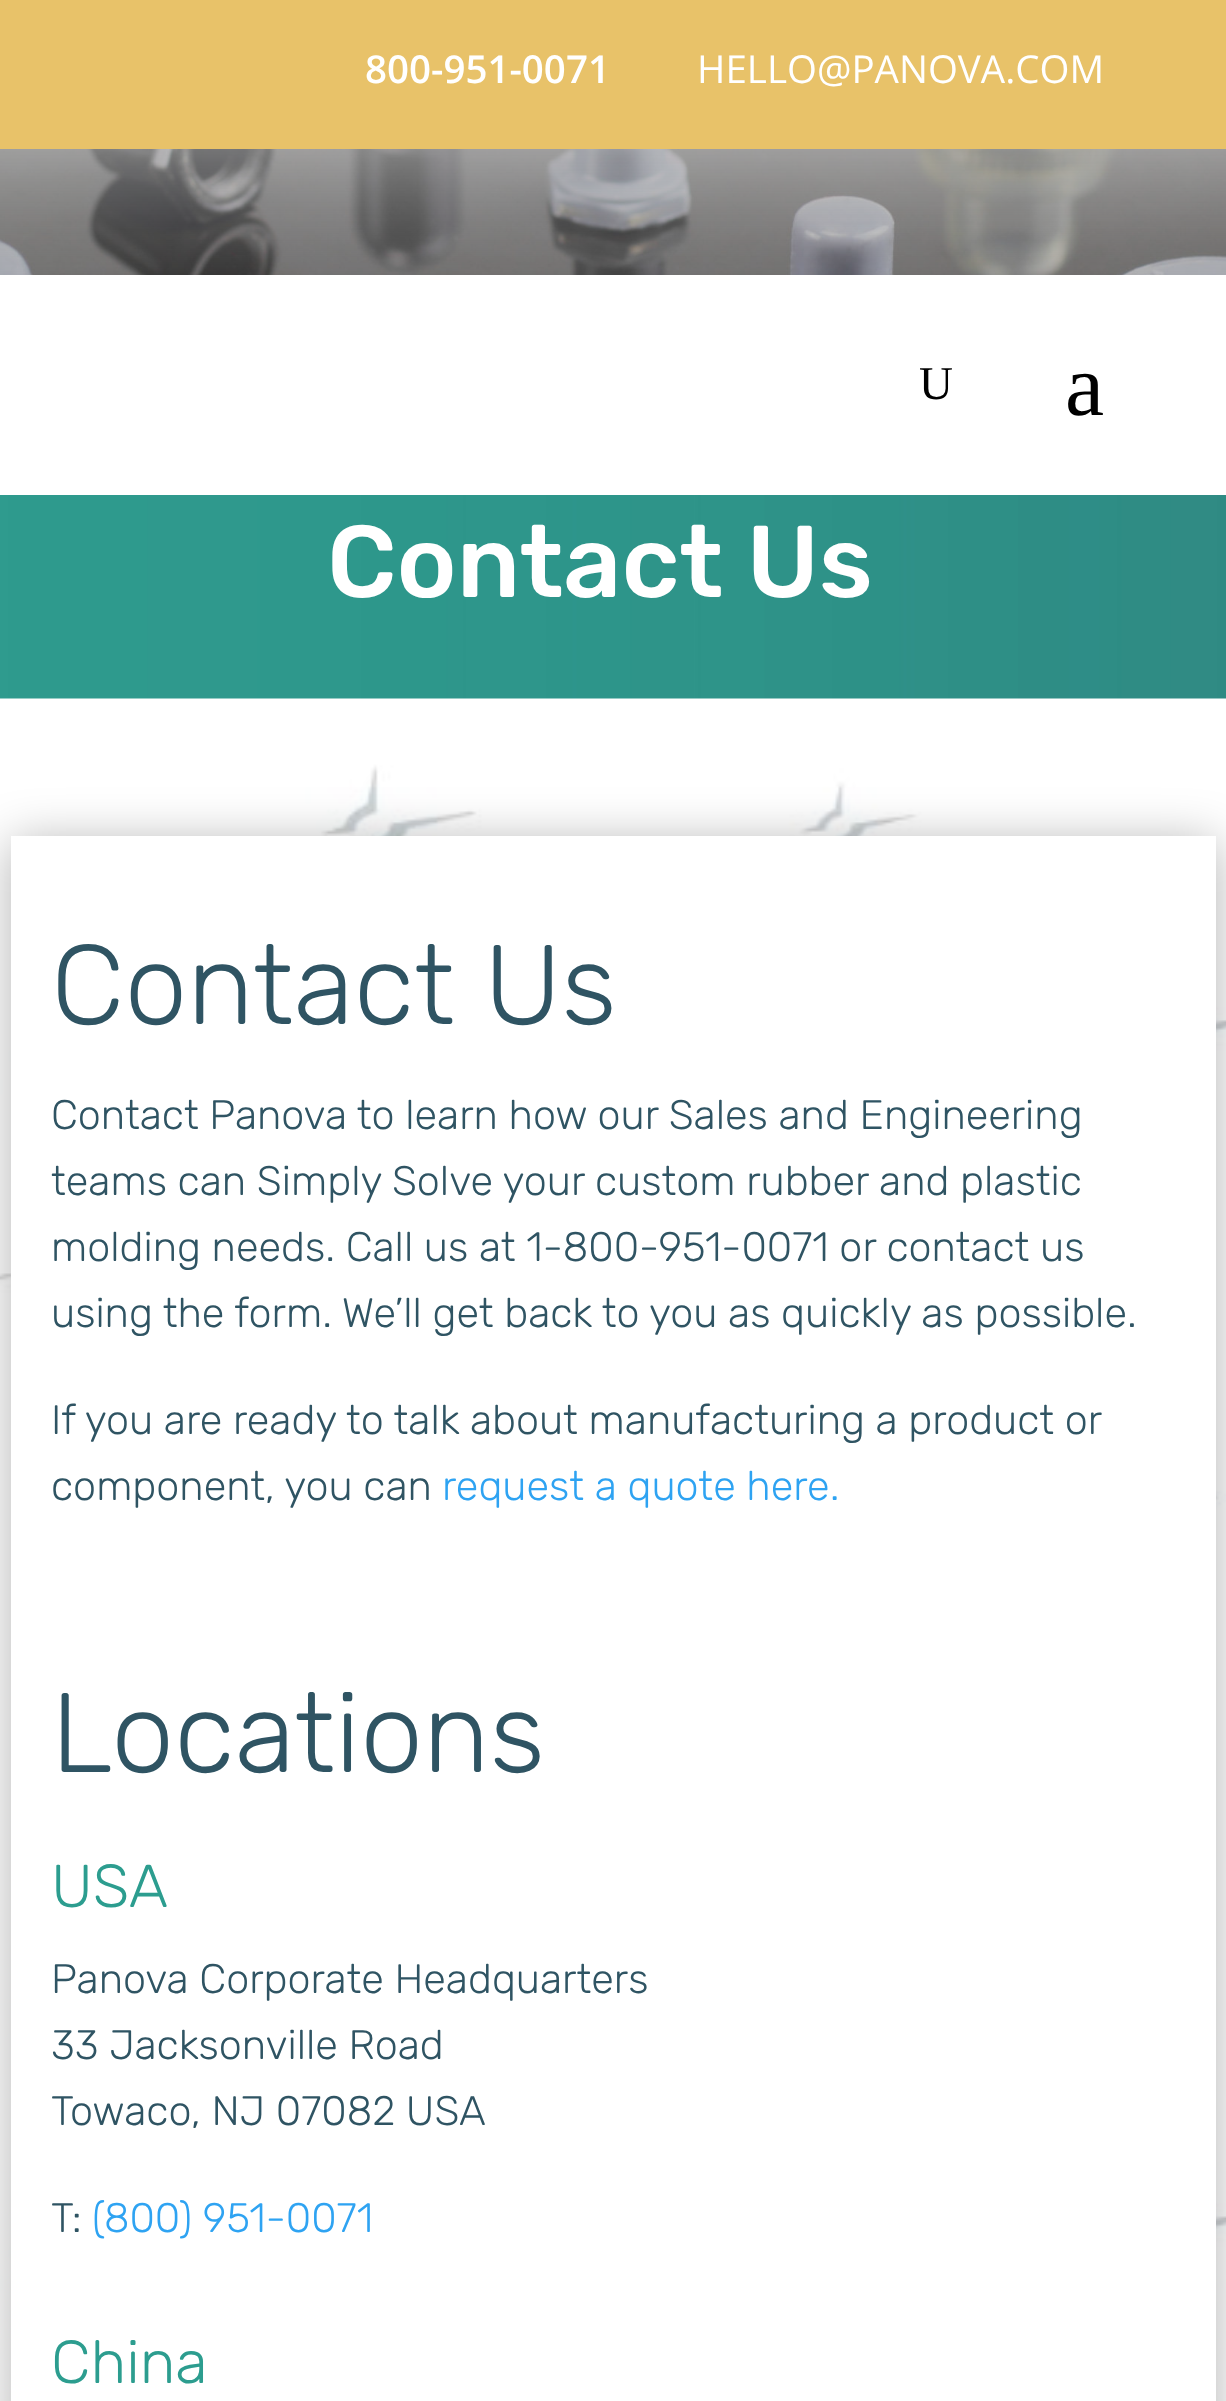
<!DOCTYPE html>
<meta charset="utf-8">
<style>body { margin: 0 } canvas { display: block }</style>
<canvas id="canvas" width="1226" height="2401"></canvas>
<script type="module">
  const canvas = document.getElementById("canvas");
  const ctx = canvas.getContext("2d");
  ctx.miterLimit = 4;
  ctx.fontKerning = "normal";
  async function loadImage(src) {
    const img = new Image();
    img.src = src;
    await img.decode();
    return img;
  }

  ctx.fillStyle = "#ffffff";
  ctx.fillRect(0, 0, 1226, 2401);
  ctx.fillStyle = "#e8c269";
  ctx.fillRect(0, 0, 1226, 149);
  ctx.font = "600 38.5px Open Sans";
  ctx.fillStyle = "#ffffff";
  ctx.fillText("800-951-0071", 365, 83);
  ctx.font = "38.5px Open Sans";
  ctx.fillText("HELLO@PANOVA.COM", 697, 83);
  ctx.font = "47px Liberation Serif";
  ctx.fillStyle = "#000000";
  ctx.fillText("U", 919, 399);
  ctx.font = "88px Liberation Serif";
  ctx.fillText("a", 1065, 415);
  ctx.drawImage(await loadImage("img1.png"), 0, 149, 1226, 126);
  ctx.drawImage(await loadImage("img2.png"), 0, 495, 1226, 204);
  ctx.font = "300 101.75px 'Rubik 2'";
  ctx.fillStyle = "#ffffff";
  ctx.fillText("Contact Us", 327, 597);
  ctx.drawImage(await loadImage("img3.png"), 0, 698, 1226, 1703);
  ctx.fillStyle = "rgba(0, 0, 0, 0.3)";
  ctx.filter = "blur(25px)";
  ctx.beginPath();
  ctx.rect(11, 842, 1205, 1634);
  ctx.fill();
  ctx.filter = "none";
  ctx.fillStyle = "#ffffff";
  ctx.fillRect(11, 836, 1205, 1565);
  ctx.font = "300 112.75px Rubik";
  ctx.fillStyle = "#2f5463";
  ctx.fillText("Contact Us", 51, 1024);
  ctx.font = "300 41.25px Rubik";
  ctx.fillText("Contact Panova to learn how our Sales and Engineering", 51, 1129);
  ctx.fillText("teams can Simply Solve your custom rubber and plastic", 51, 1195);
  ctx.fillText("molding needs. Call us at 1-800-951-0071 or contact us", 51, 1261);
  ctx.fillText("using the form. We’ll get back to you as quickly as possible.", 51, 1327);
  ctx.fillText("If you are ready to talk about manufacturing a product or", 51, 1434);
  ctx.fillText("component, you can", 51, 1500);
  ctx.fillStyle = "#2ea3f2";
  ctx.fillText("request a quote here.", 442, 1500);
  ctx.font = "300 112.75px Rubik";
  ctx.fillStyle = "#2f5463";
  ctx.fillText("Locations", 51, 1772);
  ctx.font = "300 60.5px Rubik";
  ctx.fillStyle = "#2c9d8f";
  ctx.fillText("USA", 51, 1907);
  ctx.font = "300 41.25px Rubik";
  ctx.fillStyle = "#2f5463";
  ctx.fillText("Panova Corporate Headquarters", 51, 1993);
  ctx.fillText("33 Jacksonville Road", 51, 2059);
  ctx.fillText("Towaco, NJ 07082 USA", 51, 2125);
  ctx.fillText("T:", 51, 2232);
  ctx.fillStyle = "#2ea3f2";
  ctx.fillText("(800) 951-0071", 92, 2232);
  ctx.font = "300 60.5px Rubik";
  ctx.fillStyle = "#2c9d8f";
  ctx.fillText("China", 51, 2383);
</script>
